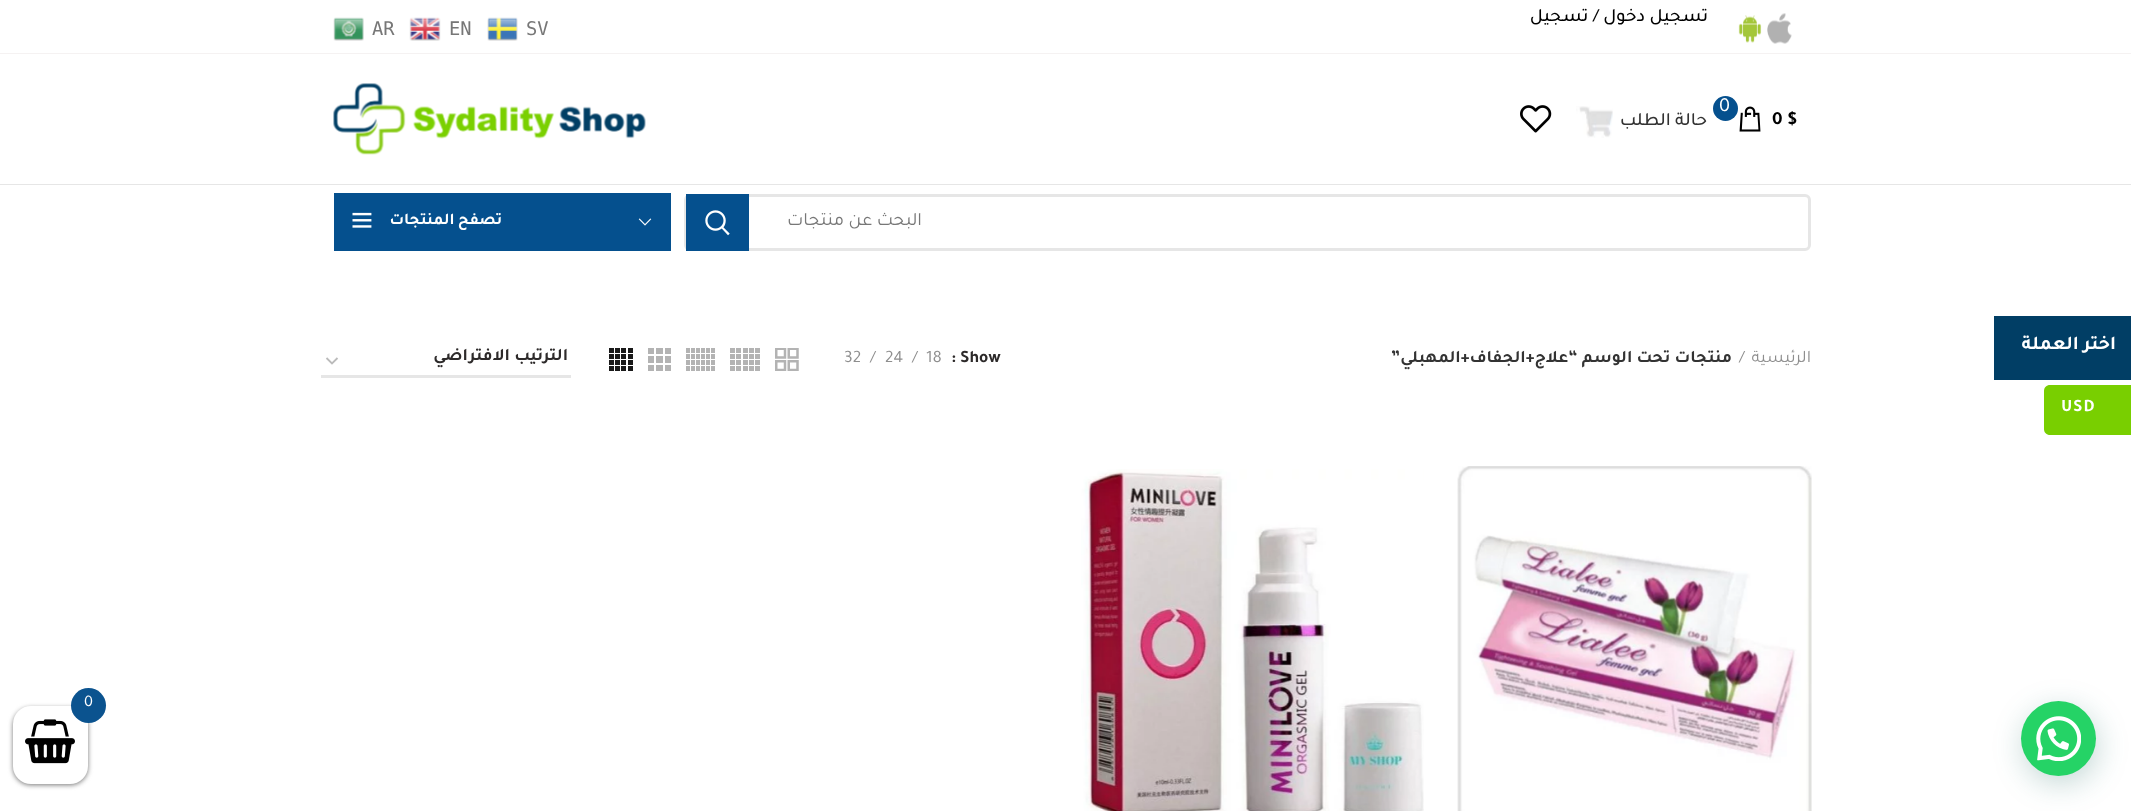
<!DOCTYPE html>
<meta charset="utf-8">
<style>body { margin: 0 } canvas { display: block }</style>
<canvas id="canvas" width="2131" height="811"></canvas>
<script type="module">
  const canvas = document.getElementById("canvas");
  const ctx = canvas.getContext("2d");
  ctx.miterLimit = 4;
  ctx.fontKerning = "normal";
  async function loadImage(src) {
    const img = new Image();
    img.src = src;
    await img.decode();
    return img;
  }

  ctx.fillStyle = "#ffffff";
  ctx.fillRect(0, 0, 2131, 811);
  ctx.fillStyle = "#013e65";
  ctx.fillRect(1994, 316, 137, 64);
  ctx.direction = "rtl";
  ctx.font = "bold 19.5px Tajawal";
  ctx.fillStyle = "#ffffff";
  ctx.fillText("اختر العملة", 2116, 349);
  ctx.fillStyle = "#79cf00";
  ctx.beginPath();
  ctx.moveTo(2050, 385);
  ctx.lineTo(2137, 385);
  ctx.lineTo(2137, 435);
  ctx.lineTo(2050, 435);
  ctx.bezierCurveTo(2046.5, 435, 2044, 432.5, 2044, 429);
  ctx.lineTo(2044, 391);
  ctx.bezierCurveTo(2044, 387.5, 2046.5, 385, 2050, 385);
  ctx.closePath();
  ctx.fill();
  ctx.letterSpacing = "1px";
  ctx.direction = "ltr";
  ctx.font = "bold 17.5px Tajawal";
  ctx.fillStyle = "#ffffff";
  ctx.fillText("USD", 2061, 411);
  ctx.fillStyle = "#f5f2f2";
  ctx.fillRect(0, 53, 2131, 1);
  ctx.drawImage(await loadImage("img1.png"), 1767, 13, 25, 31);
  ctx.drawImage(await loadImage("img2.png"), 1738, 15, 24, 28);
  ctx.letterSpacing = "0px";
  ctx.direction = "rtl";
  ctx.font = "500 18.75px Tajawal";
  ctx.fillStyle = "#000000";
  ctx.fillText("تسجيل دخول / تسجيل", 1708, 21);
  ctx.direction = "ltr";
  ctx.font = "18.75px DejaVu Sans Mono";
  ctx.fillStyle = "#777777";
  ctx.fillText("SV", 526, 35);
  ctx.drawImage(await loadImage("img3.png"), 487, 17, 31, 24);
  ctx.fillText("EN", 449, 35);
  ctx.drawImage(await loadImage("img4.png"), 409, 17, 32, 24);
  ctx.fillText("AR", 372, 35);
  ctx.drawImage(await loadImage("img5.png"), 333, 17, 31, 24);
  ctx.fillStyle = "#e6e6e6";
  ctx.fillRect(0, 184, 2131, 1);
  ctx.drawImage(await loadImage("img6.png"), 1739, 106, 22, 26);
  ctx.fillStyle = "#05508e";
  ctx.beginPath();
  ctx.arc(1725.5, 108.5, 12.5, 0, Math.PI * 2);
  ctx.fill();
  ctx.font = "20px Tajawal";
  ctx.fillStyle = "#ffffff";
  ctx.fillText("0", 1719, 111);
  ctx.font = "bold 18.75px Tajawal";
  ctx.fillStyle = "#000000";
  ctx.fillText("0 $", 1772, 124);
  ctx.direction = "rtl";
  ctx.font = "500 18.75px Tajawal";
  ctx.fillStyle = "#333333";
  ctx.fillText("حالة الطلب", 1707, 125);
  ctx.drawImage(await loadImage("img7.png"), 1576, 106, 37, 32);
  ctx.drawImage(await loadImage("img8.png"), 1520, 105, 32, 28);
  ctx.drawImage(await loadImage("img9.png"), 333, 83, 313, 72);
  ctx.beginPath();
  ctx.roundRect(685.5, 195.5, 1124, 54, 4.5);
  ctx.strokeStyle = "#e6e6e6";
  ctx.lineWidth = 3;
  ctx.stroke();
  ctx.font = "18.75px Tajawal";
  ctx.fillStyle = "#777777";
  ctx.fillText("البحث عن منتجات", 922, 225);
  ctx.fillStyle = "#05508e";
  ctx.fillRect(686, 194, 63, 57);
  ctx.drawImage(await loadImage("img10.png"), 705, 210, 25, 26);
  ctx.fillRect(334, 193, 337, 58);
  ctx.drawImage(await loadImage("img11.png"), 638, 218, 14, 8);
  ctx.letterSpacing = "0.5px";
  ctx.wordSpacing = "-1px";
  ctx.font = "bold 16.25px Tajawal";
  ctx.fillStyle = "#ffffff";
  ctx.fillText("تصفح المنتجات", 502, 224);
  ctx.drawImage(await loadImage("img12.png"), 352, 212, 20, 16);
  ctx.letterSpacing = "0px";
  ctx.wordSpacing = "0px";
  ctx.font = "17.5px Tajawal";
  ctx.fillStyle = "#8e8e8e";
  ctx.fillText("الرئيسية", 1811, 362);
  ctx.direction = "ltr";
  ctx.fillText("/", 1739, 362);
  ctx.direction = "rtl";
  ctx.font = "bold 17.5px Tajawal";
  ctx.fillStyle = "#333333";
  ctx.fillText("منتجات تحت الوسم “علاج+الجفاف+المهبلي”", 1732, 362);
  ctx.direction = "ltr";
  ctx.fillStyle = "#2d2a2a";
  ctx.fillText("Show", 960, 362);
  ctx.fillText(":", 951, 362);
  ctx.font = "17.5px Tajawal";
  ctx.fillStyle = "#8e8e8e";
  ctx.fillText("18", 926, 362);
  ctx.fillText("/", 912, 362);
  ctx.fillText("24", 885, 362);
  ctx.fillText("/", 870, 362);
  ctx.fillText("32", 844, 362);
  ctx.drawImage(await loadImage("img13.png"), 775, 348, 24, 23);
  ctx.drawImage(await loadImage("img14.png"), 730, 348, 30, 23);
  ctx.drawImage(await loadImage("img15.png"), 686, 348, 29, 23);
  ctx.drawImage(await loadImage("img16.png"), 648, 348, 23, 23);
  ctx.drawImage(await loadImage("img17.png"), 609, 348, 24, 23);
  ctx.beginPath();
  ctx.moveTo(326.5, 358);
  ctx.lineTo(332, 363.5);
  ctx.lineTo(337.5, 358);
  ctx.strokeStyle = "#bbbbbb";
  ctx.lineWidth = 1.8;
  ctx.stroke();
  ctx.fillStyle = "#e6e6e6";
  ctx.fillRect(321, 375, 250, 3);
  ctx.direction = "rtl";
  ctx.font = "bold 17.5px Tajawal";
  ctx.fillStyle = "#2d2a2a";
  ctx.fillText("الترتيب الافتراضي", 568, 360);
  ctx.drawImage(await loadImage("img18.png"), 1457, 466, 355, 345);
  ctx.drawImage(await loadImage("img19.png"), 1081, 469, 343, 342);
  ctx.fillStyle = "rgba(7, 94, 84, 0.24)";
  ctx.filter = "blur(15px)";
  ctx.beginPath();
  ctx.roundRect(2023, 709, 75, 75, 37.5);
  ctx.fill();
  ctx.filter = "none";
  ctx.fillStyle = "#25d366";
  ctx.beginPath();
  ctx.arc(2058.5, 738.5, 37.5, 0, Math.PI * 2);
  ctx.fill();
  ctx.drawImage(await loadImage("img20.png"), 2036, 716, 45, 45);
  ctx.fillStyle = "#777777";
  ctx.filter = "blur(2.5px)";
  ctx.beginPath();
  ctx.roundRect(13, 708, 75, 77, 18);
  ctx.fill();
  ctx.filter = "none";
  ctx.fillStyle = "#ffffff";
  ctx.beginPath();
  ctx.roundRect(13, 706, 75, 78, 18);
  ctx.fill();
  ctx.drawImage(await loadImage("img21.png"), 25, 719, 50, 45);
  ctx.fillStyle = "#0b538f";
  ctx.beginPath();
  ctx.arc(88.5, 705.5, 17.5, 0, Math.PI * 2);
  ctx.fill();
  ctx.direction = "ltr";
  ctx.font = "16.25px Tajawal";
  ctx.fillStyle = "#ffffff";
  ctx.fillText("0", 84, 706);
</script>
